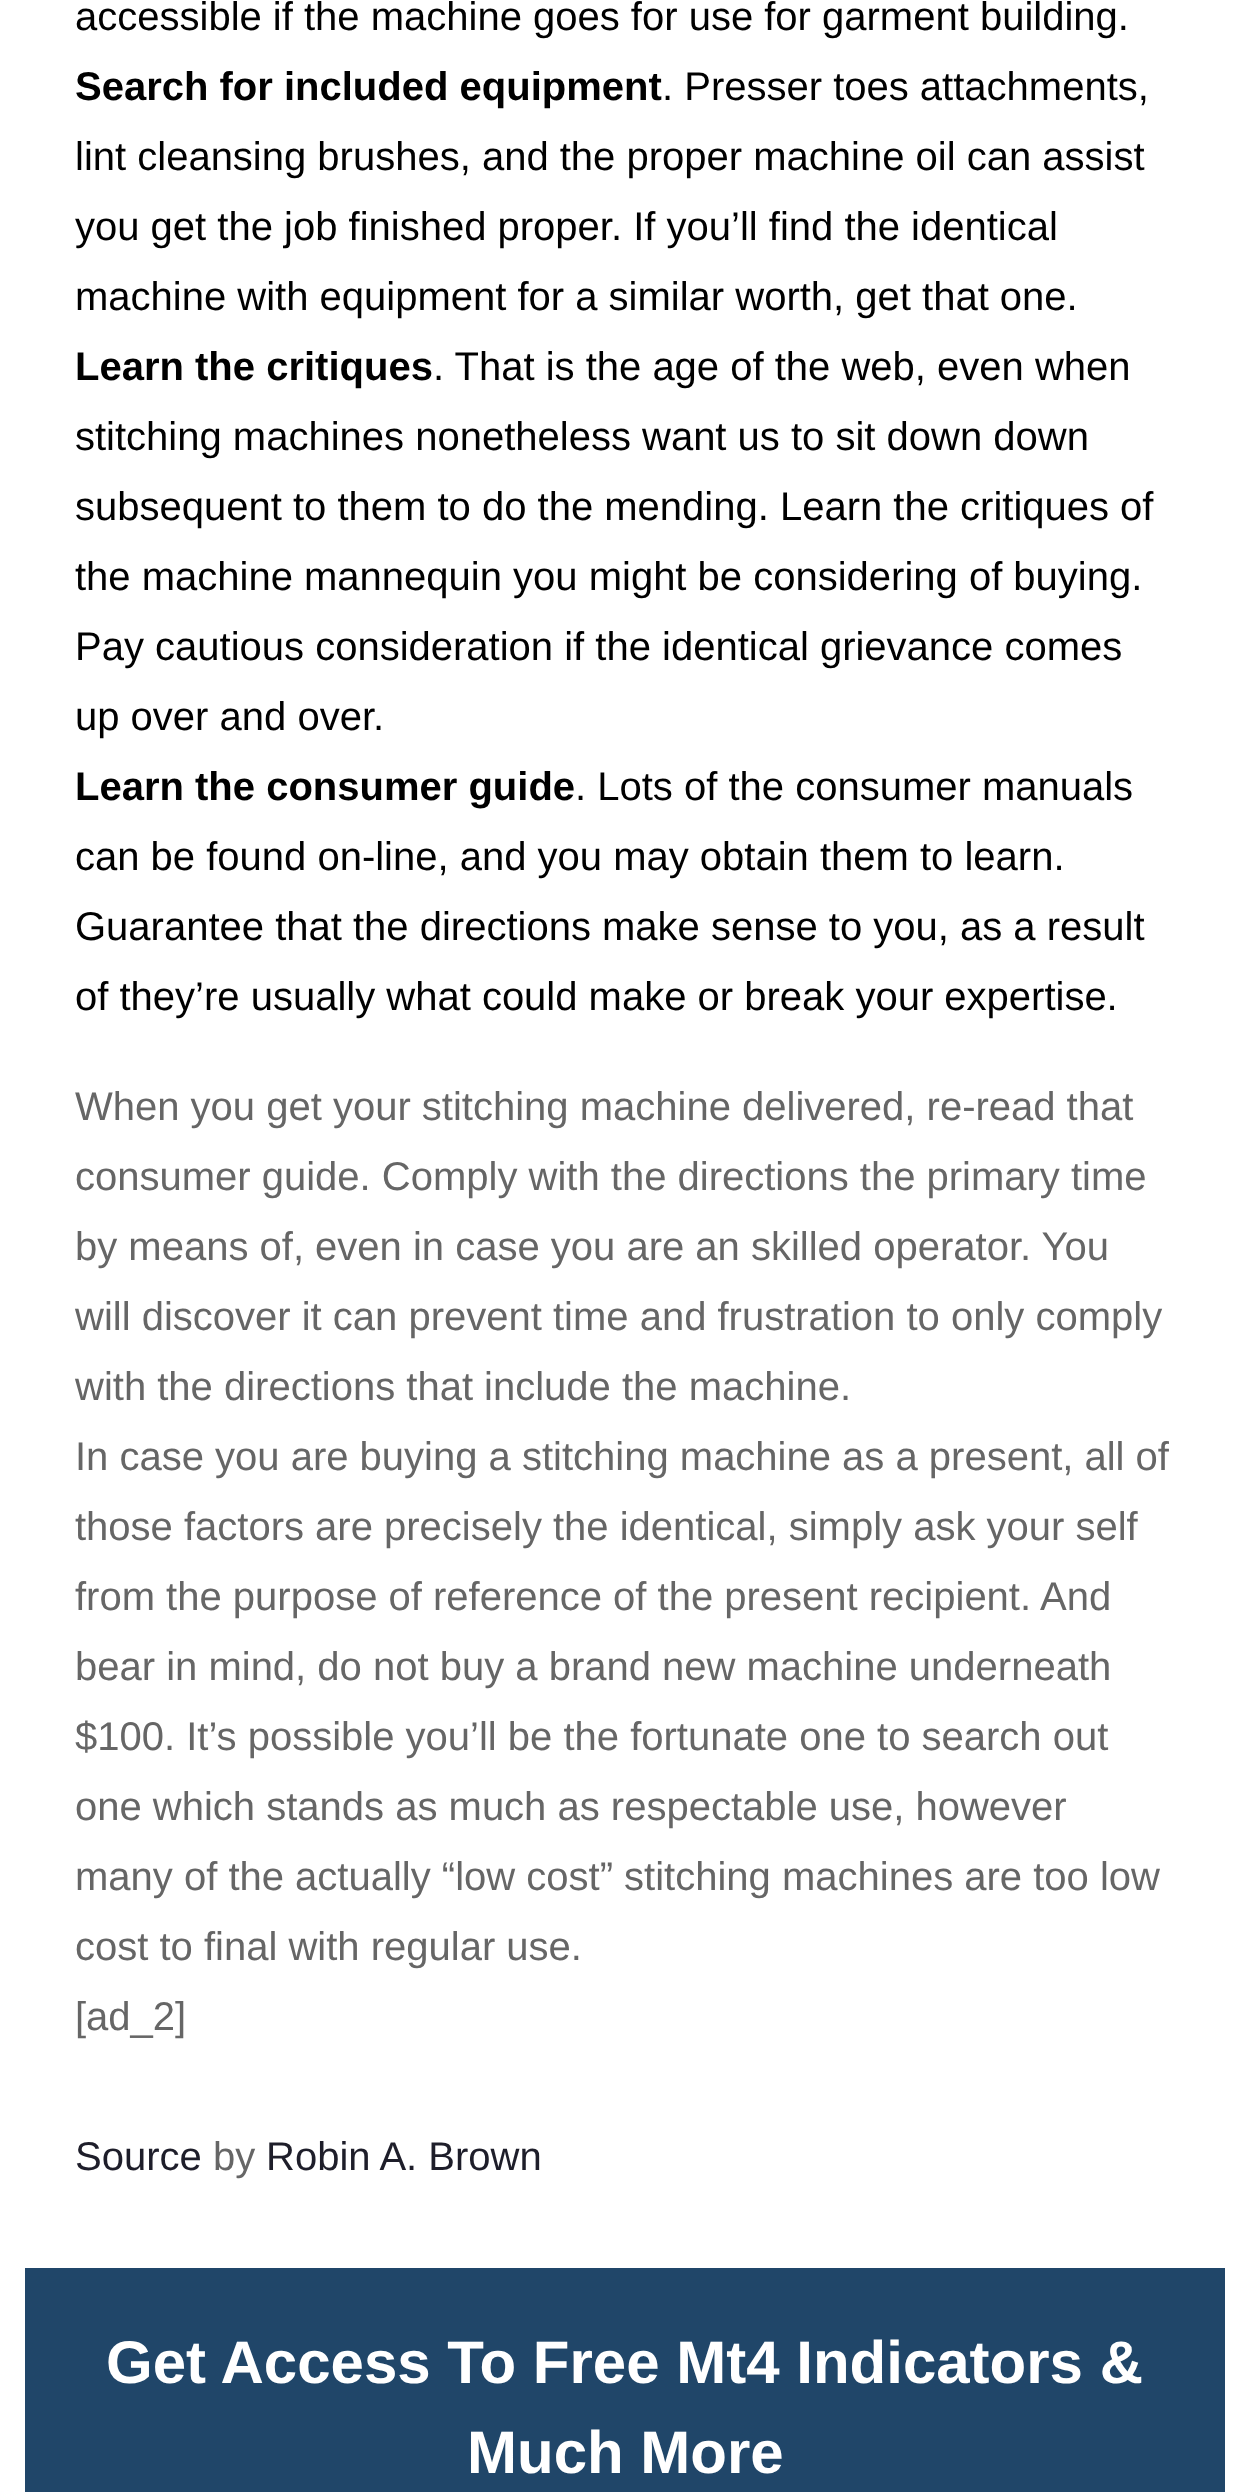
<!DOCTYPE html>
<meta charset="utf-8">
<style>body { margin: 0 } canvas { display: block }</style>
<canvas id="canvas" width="1250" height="2492"></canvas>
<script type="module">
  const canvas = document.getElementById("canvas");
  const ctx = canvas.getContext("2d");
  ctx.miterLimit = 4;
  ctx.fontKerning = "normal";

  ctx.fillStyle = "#ffffff";
  ctx.fillRect(0, 0, 1250, 2492);
  ctx.font = "40px Arimo";
  ctx.fillStyle = "#000000";
  ctx.fillText("accessible if the machine goes for use for garment building.", 75, 30);
  ctx.font = "bold 40px Arimo";
  ctx.fillText("Search for included equipment", 75, 100);
  ctx.font = "40px Arimo";
  ctx.fillText(". Presser toes attachments,", 662, 100);
  ctx.fillText("lint cleansing brushes, and the proper machine oil can assist", 75, 170);
  ctx.fillText("you get the job finished proper. If you’ll find the identical", 75, 240);
  ctx.fillText("machine with equipment for a similar worth, get that one.", 75, 310);
  ctx.font = "bold 40px Arimo";
  ctx.fillText("Learn the critiques", 75, 380);
  ctx.font = "40px Arimo";
  ctx.fillText(". That is the age of the web, even when", 433, 380);
  ctx.fillText("stitching machines nonetheless want us to sit down down", 75, 450);
  ctx.fillText("subsequent to them to do the mending. Learn the critiques of", 75, 520);
  ctx.fillText("the machine mannequin you might be considering of buying.", 75, 590);
  ctx.fillText("Pay cautious consideration if the identical grievance comes", 75, 660);
  ctx.fillText("up over and over.", 75, 730);
  ctx.font = "bold 40px Arimo";
  ctx.fillText("Learn the consumer guide", 75, 800);
  ctx.font = "40px Arimo";
  ctx.fillText(". Lots of the consumer manuals", 575, 800);
  ctx.fillText("can be found on-line, and you may obtain them to learn.", 75, 870);
  ctx.fillText("Guarantee that the directions make sense to you, as a result", 75, 940);
  ctx.fillText("of they’re usually what could make or break your expertise.", 75, 1010);
  ctx.fillStyle = "#666666";
  ctx.fillText("When you get your stitching machine delivered, re-read that", 75, 1120);
  ctx.fillText("consumer guide. Comply with the directions the primary time", 75, 1190);
  ctx.fillText("by means of, even in case you are an skilled operator. You", 75, 1260);
  ctx.fillText("will discover it can prevent time and frustration to only comply", 75, 1330);
  ctx.fillText("with the directions that include the machine.", 75, 1400);
  ctx.fillText("In case you are buying a stitching machine as a present, all of", 75, 1470);
  ctx.fillText("those factors are precisely the identical, simply ask your self", 75, 1540);
  ctx.fillText("from the purpose of reference of the present recipient. And", 75, 1610);
  ctx.fillText("bear in mind, do not buy a brand new machine underneath", 75, 1680);
  ctx.fillText("$100. It’s possible you’ll be the fortunate one to search out", 75, 1750);
  ctx.fillText("one which stands as much as respectable use, however", 75, 1820);
  ctx.fillText("many of the actually “low cost” stitching machines are too low", 75, 1890);
  ctx.fillText("cost to final with regular use.", 75, 1960);
  ctx.fillText("[ad_2]", 75, 2030);
  ctx.fillStyle = "#1e1e2a";
  ctx.fillText("Source", 75, 2170);
  ctx.fillStyle = "#666666";
  ctx.fillText("by", 213, 2170);
  ctx.fillStyle = "#1e1e2a";
  ctx.fillText("Robin A. Brown", 266, 2170);
  ctx.fillStyle = "#204669";
  ctx.fillRect(25, 2268, 1200, 224);
  ctx.font = "bold 60px Arimo";
  ctx.fillStyle = "#ffffff";
  ctx.fillText("Get Access To Free Mt4 Indicators &", 106, 2383);
  ctx.fillText("Much More", 467, 2473);
</script>
